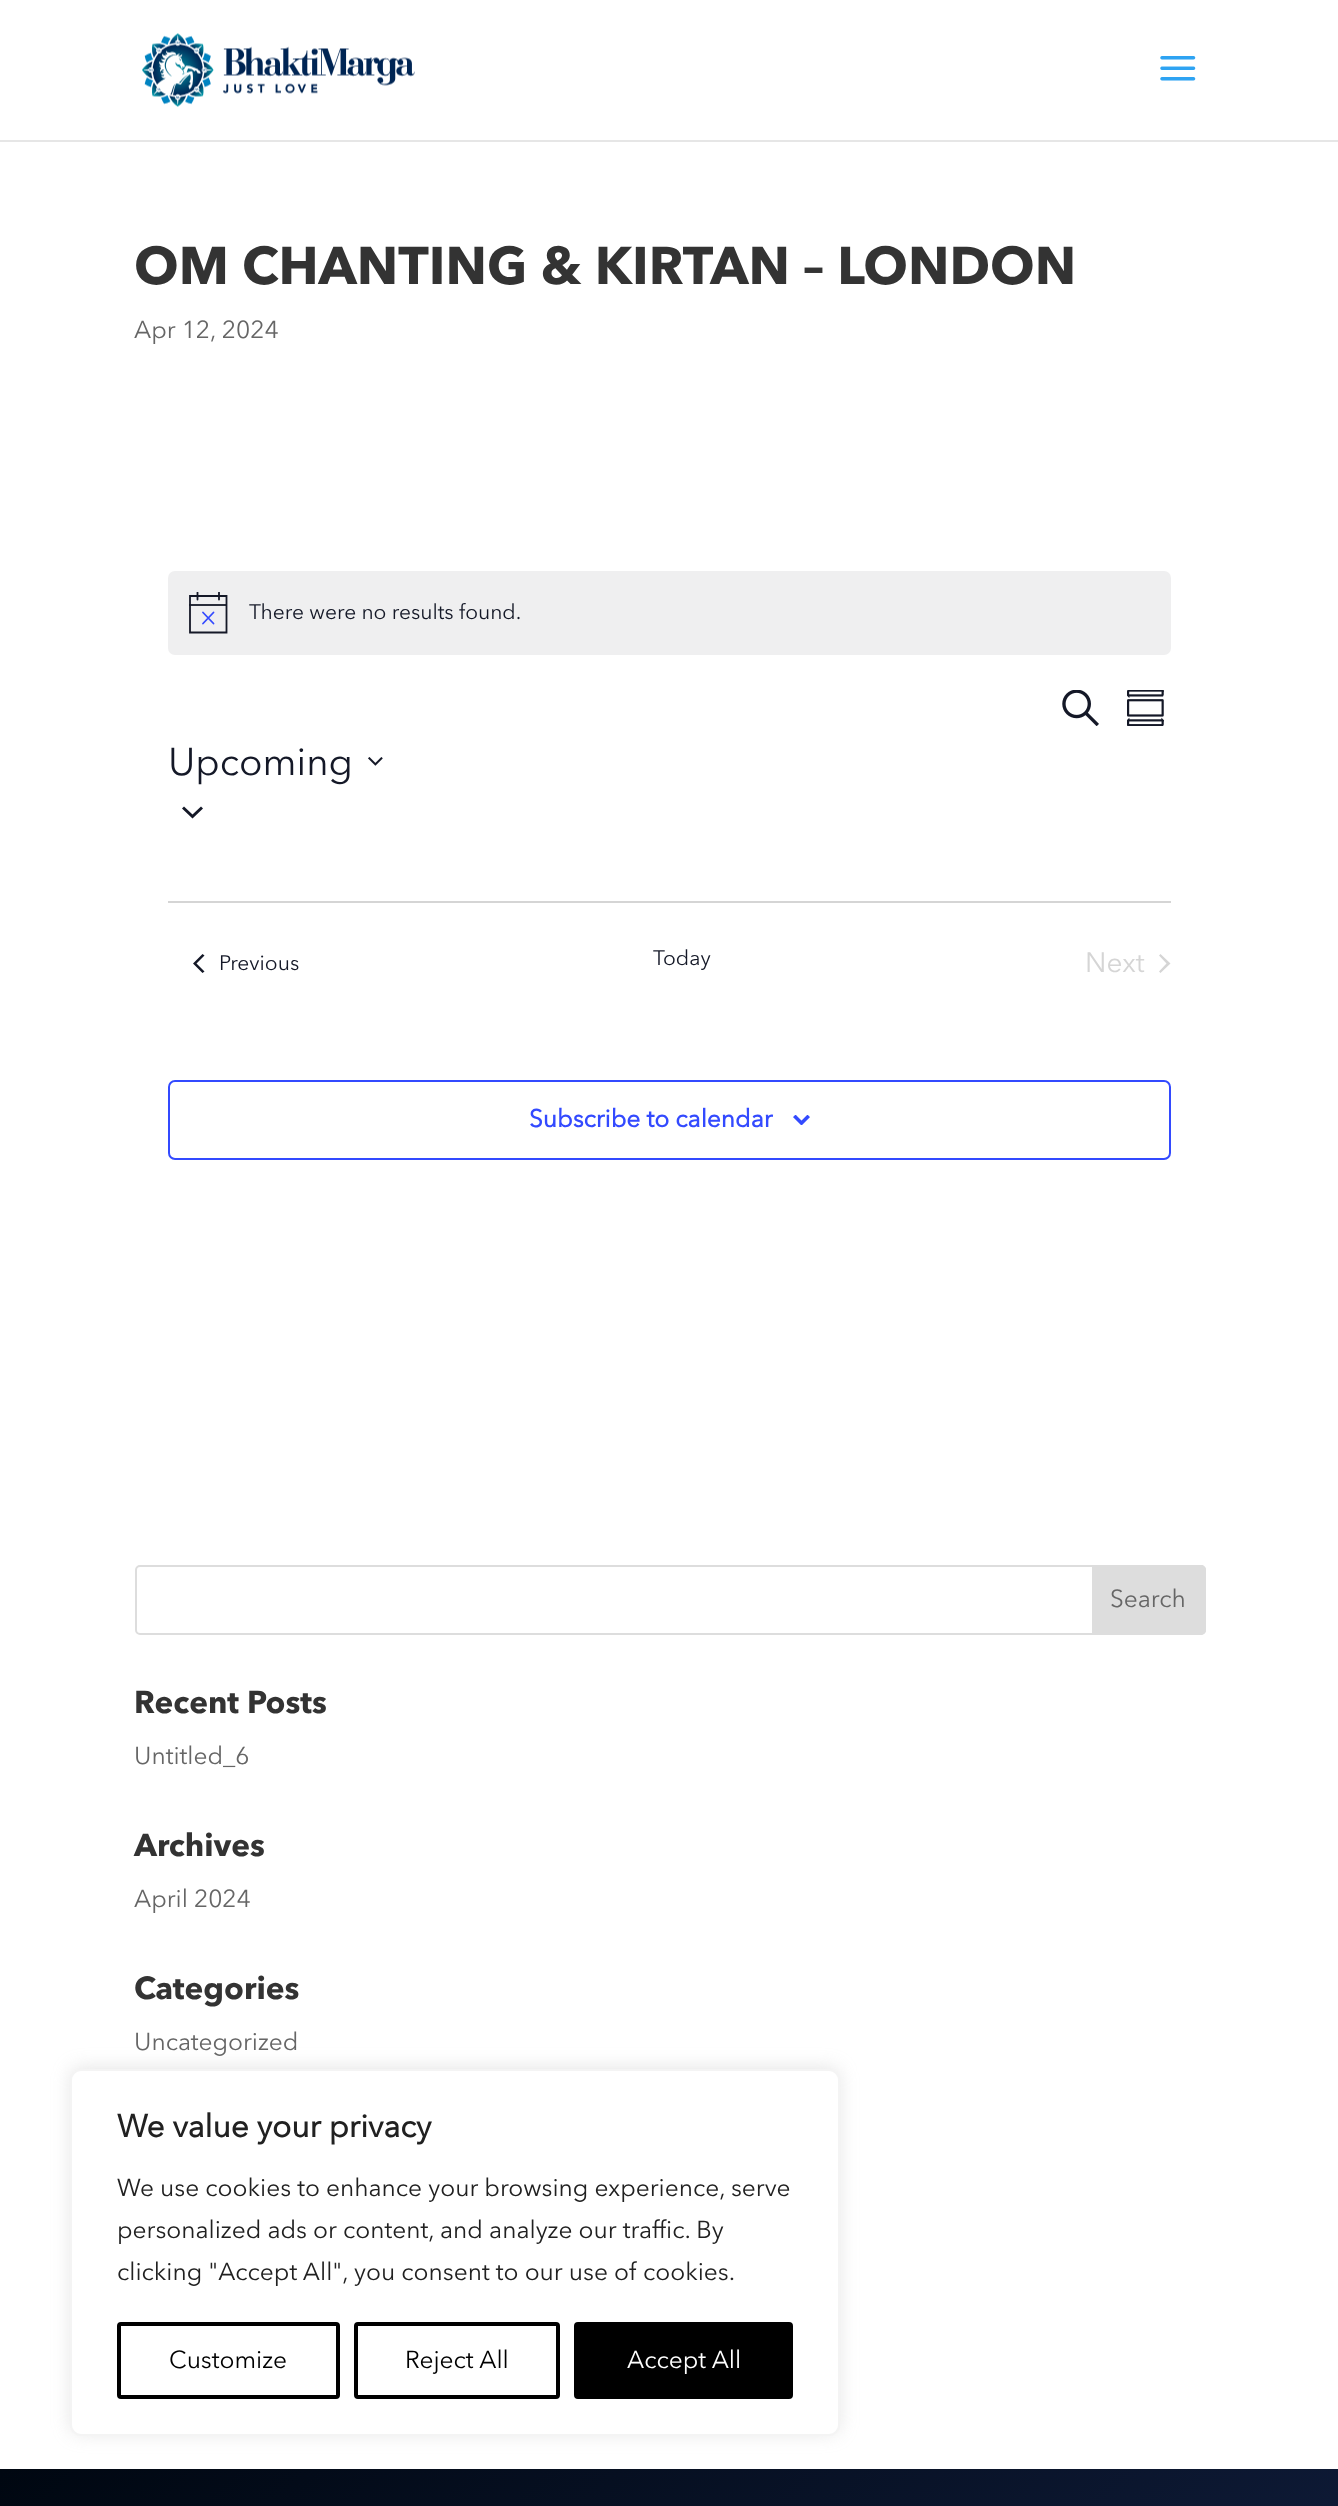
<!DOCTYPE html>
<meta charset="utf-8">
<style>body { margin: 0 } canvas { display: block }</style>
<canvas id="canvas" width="1338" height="2506"></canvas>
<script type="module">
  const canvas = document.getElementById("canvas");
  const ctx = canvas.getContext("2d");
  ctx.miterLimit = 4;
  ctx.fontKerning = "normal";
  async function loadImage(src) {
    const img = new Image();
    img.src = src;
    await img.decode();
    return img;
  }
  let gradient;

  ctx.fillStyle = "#ffffff";
  ctx.fillRect(0, 0, 1338, 2506);
  ctx.fillStyle = "#e6e6e6";
  ctx.beginPath();
  ctx.moveTo(0, 140);
  ctx.lineTo(0, 142);
  ctx.lineTo(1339, 142);
  ctx.lineTo(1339, 2);
  ctx.lineTo(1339, 140);
  ctx.closePath();
  ctx.fill();
  ctx.drawImage(await loadImage("img1.png"), 142, 33, 273, 74);
  ctx.drawImage(await loadImage("img2.png"), 1160, 56, 36, 25);
  ctx.font = "bold 52.5px Avenir Next";
  ctx.fillStyle = "#333333";
  ctx.fillText("OM CHANTING & KIRTAN – LONDON", 134, 284);
  ctx.font = "24.5px Avenir Next";
  ctx.fillStyle = "#666666";
  ctx.fillText("Apr 12, 2024", 134, 338);
  ctx.fillStyle = "#efeff0";
  ctx.beginPath();
  ctx.roundRect(168, 571, 1003, 84, 7);
  ctx.fill();
  ctx.beginPath();
  ctx.moveTo(190, 596);
  ctx.lineTo(226.5, 596);
  ctx.lineTo(226.5, 632.5);
  ctx.lineTo(190, 632.5);
  ctx.closePath();
  ctx.strokeStyle = "#141827";
  ctx.lineWidth = 1.8;
  ctx.stroke();
  ctx.beginPath();
  ctx.moveTo(203, 612.5);
  ctx.lineTo(213.5, 623.5);
  ctx.moveTo(213.5, 612.5);
  ctx.lineTo(203, 623.5);
  ctx.strokeStyle = "#334aff";
  ctx.lineCap = "round";
  ctx.stroke();
  ctx.save();
  ctx.beginPath();
  ctx.rect(189, 592, 39, 42);
  ctx.clip();
  ctx.beginPath();
  ctx.moveTo(197.5, 592.5);
  ctx.lineTo(197.5, 599.5);
  ctx.moveTo(219, 592.5);
  ctx.lineTo(219, 599.5);
  ctx.strokeStyle = "#141827";
  ctx.stroke();
  ctx.restore();
  ctx.fillStyle = "rgba(20, 24, 39, 0.9)";
  ctx.fillRect(189, 604, 38, 2);
  ctx.font = "21px Avenir Next";
  ctx.fillStyle = "#141827";
  ctx.fillText("There were no results found.", 249, 619);
  ctx.drawImage(await loadImage("img3.png"), 1062, 690, 37, 36);
  ctx.drawImage(await loadImage("img4.png"), 1127, 690, 37, 36);
  ctx.font = "38.5px Avenir Next";
  ctx.fillText("Upcoming", 168, 775);
  ctx.drawImage(await loadImage("img5.png"), 368, 757, 15, 9);
  ctx.beginPath();
  ctx.moveTo(184, 806.5);
  ctx.lineTo(192.5, 814.5);
  ctx.lineTo(201, 806.5);
  ctx.lineTo(203, 808.5);
  ctx.lineTo(192.5, 818.5);
  ctx.lineTo(182, 808.5);
  ctx.closePath();
  ctx.fill("evenodd");
  ctx.fillStyle = "#d5d5d5";
  ctx.fillRect(168, 901, 1003, 2);
  ctx.fillStyle = "#141827";
  ctx.beginPath();
  ctx.moveTo(204.5, 971.5);
  ctx.lineTo(202.5, 973);
  ctx.lineTo(193, 963.5);
  ctx.lineTo(202.5, 954);
  ctx.lineTo(204.5, 955.5);
  ctx.lineTo(196.5, 963.5);
  ctx.closePath();
  ctx.fill();
  ctx.font = "21px Avenir Next";
  ctx.fillText("Previous", 219, 970);
  ctx.fillText("Today", 653, 965);
  ctx.font = "28px Avenir Next";
  ctx.fillStyle = "#d5d5d5";
  ctx.fillText("Next", 1085, 972);
  ctx.beginPath();
  ctx.moveTo(1159, 955.5);
  ctx.lineTo(1160.5, 954);
  ctx.lineTo(1170.5, 963.5);
  ctx.lineTo(1160.5, 973);
  ctx.lineTo(1159, 971.5);
  ctx.lineTo(1166.5, 963.5);
  ctx.closePath();
  ctx.fill();
  ctx.beginPath();
  ctx.roundRect(169, 1081, 1001, 78, 6);
  ctx.lineWidth = 2;
  ctx.stroke();
  ctx.font = "bold 24.5px 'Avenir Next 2'";
  ctx.fillStyle = "#334aff";
  ctx.fillText("Subscribe to calendar", 529, 1127);
  ctx.drawImage(await loadImage("img6.png"), 793, 1115, 17, 10);
  ctx.beginPath();
  ctx.roundRect(136, 1566, 1069, 68, 4);
  ctx.strokeStyle = "#dddddd";
  ctx.stroke();
  ctx.fillStyle = "#dddddd";
  ctx.beginPath();
  ctx.roundRect(1093, 1566, 112, 68, [0, 4, 4, 0]);
  ctx.fill();
  ctx.stroke();
  ctx.font = "24.5px Avenir Next";
  ctx.fillStyle = "#666666";
  ctx.fillText("Search", 1110, 1607);
  ctx.font = "bold 31.5px Avenir Next";
  ctx.fillStyle = "#333333";
  ctx.fillText("Recent Posts", 134, 1713);
  ctx.font = "24.5px Avenir Next";
  ctx.fillStyle = "#666666";
  ctx.fillText("Untitled_6", 134, 1764);
  ctx.font = "bold 31.5px Avenir Next";
  ctx.fillStyle = "#333333";
  ctx.fillText("Archives", 134, 1856);
  ctx.font = "24.5px Avenir Next";
  ctx.fillStyle = "#666666";
  ctx.fillText("April 2024", 134, 1907);
  ctx.font = "bold 31.5px Avenir Next";
  ctx.fillStyle = "#333333";
  ctx.fillText("Categories", 134, 1999);
  ctx.font = "24.5px Avenir Next";
  ctx.fillStyle = "#666666";
  ctx.fillText("Uncategorized", 134, 2050);
  gradient = ctx.createLinearGradient(1246, 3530, 93, 2377);
  gradient.addColorStop(0, "#16254c");
  gradient.addColorStop(1, "#000711");
  ctx.fillStyle = gradient;
  ctx.fillRect(0, 2469, 1338, 37);
  ctx.fillStyle = "rgba(172, 171, 171, 0.3)";
  ctx.filter = "blur(9px)";
  ctx.beginPath();
  ctx.roundRect(70, 2067, 770, 367, 11);
  ctx.fill();
  ctx.filter = "none";
  ctx.fillStyle = "#ffffff";
  ctx.beginPath();
  ctx.roundRect(71, 2070, 768, 365, 10);
  ctx.fill();
  ctx.strokeStyle = "#f4f4f4";
  ctx.stroke();
  ctx.font = "bold 31.5px 'Avenir Next 2'";
  ctx.fillStyle = "#212121";
  ctx.fillText("We value your privacy", 117, 2137);
  ctx.font = "24.5px Avenir Next";
  ctx.fillText("We use cookies to enhance your browsing experience, serve", 117, 2196);
  ctx.fillText("personalized ads or content, and analyze our traffic. By", 117, 2238);
  ctx.fillText("clicking \"Accept All\", you consent to our use of cookies.", 117, 2280);
  ctx.beginPath();
  ctx.roundRect(119, 2324, 219, 73, 2);
  ctx.strokeStyle = "#000000";
  ctx.lineWidth = 4;
  ctx.stroke();
  ctx.fillStyle = "#000000";
  ctx.fillText("Customize", 169, 2368);
  ctx.beginPath();
  ctx.roundRect(356, 2324, 202, 73, 2);
  ctx.stroke();
  ctx.fillText("Reject All", 405, 2368);
  ctx.beginPath();
  ctx.roundRect(576, 2324, 215, 73, 2);
  ctx.fill();
  ctx.stroke();
  ctx.fillStyle = "#ffffff";
  ctx.fillText("Accept All", 627, 2368);
</script>
